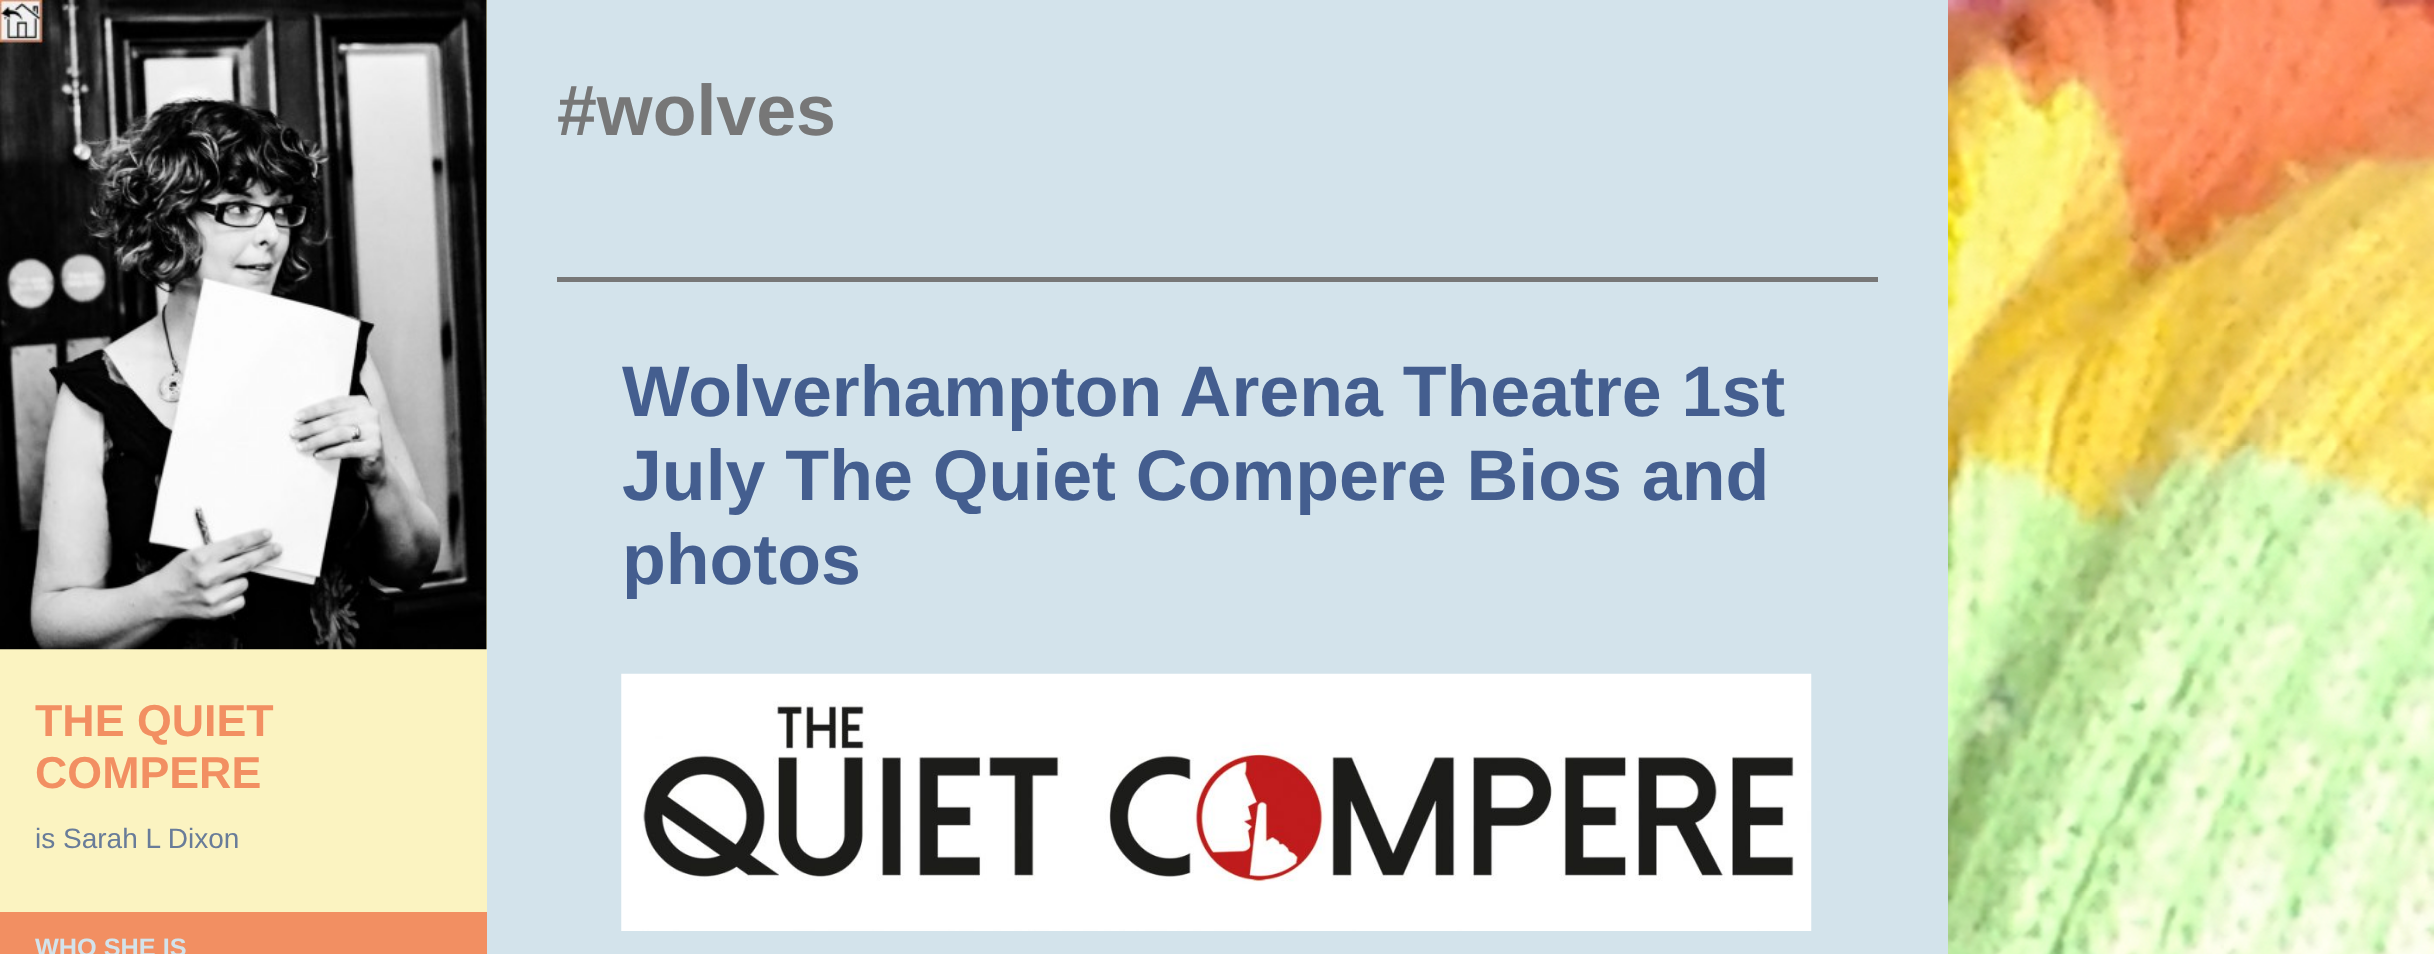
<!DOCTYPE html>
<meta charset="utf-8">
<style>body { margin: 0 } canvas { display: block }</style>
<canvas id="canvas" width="2434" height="954"></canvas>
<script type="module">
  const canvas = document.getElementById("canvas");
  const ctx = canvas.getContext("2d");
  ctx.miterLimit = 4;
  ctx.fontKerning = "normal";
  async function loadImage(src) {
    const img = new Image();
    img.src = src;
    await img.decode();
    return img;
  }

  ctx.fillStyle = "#ffffff";
  ctx.fillRect(0, 0, 2434, 954);
  ctx.drawImage(await loadImage("img1.png"), 1948, 0, 486, 954);
  ctx.fillStyle = "#d3e3eb";
  ctx.fillRect(487, 0, 1461, 954);
  ctx.fillStyle = "#777777";
  ctx.fillRect(557, 277, 1321, 5);
  ctx.font = "bold 71.7px Arimo";
  ctx.fillText("#wolves", 557, 135);
  ctx.fillStyle = "#445e8f";
  ctx.fillText("Wolverhampton Arena Theatre 1st", 622, 416);
  ctx.fillText("July The Quiet Compere Bios and", 622, 500);
  ctx.fillText("photos", 622, 584);
  ctx.drawImage(await loadImage("img2.png"), 621, 673, 1191, 258);
  ctx.fillStyle = "#fbf3c1";
  ctx.fillRect(0, 0, 487, 912);
  ctx.drawImage(await loadImage("img3.png"), 0, 0, 487, 650);
  ctx.font = "bold 44.75px Arimo";
  ctx.fillStyle = "#f28f62";
  ctx.fillText("THE QUIET", 35, 736);
  ctx.fillText("COMPERE", 35, 788);
  ctx.font = "28px Arimo";
  ctx.fillStyle = "#697c99";
  ctx.fillText("is Sarah L Dixon", 35, 848);
  ctx.fillStyle = "#f28f62";
  ctx.fillRect(0, 912, 487, 42);
  ctx.font = "bold 25.25px Arimo";
  ctx.fillStyle = "#d3e3eb";
  ctx.fillText("WHO SHE IS", 35, 956);
</script>
